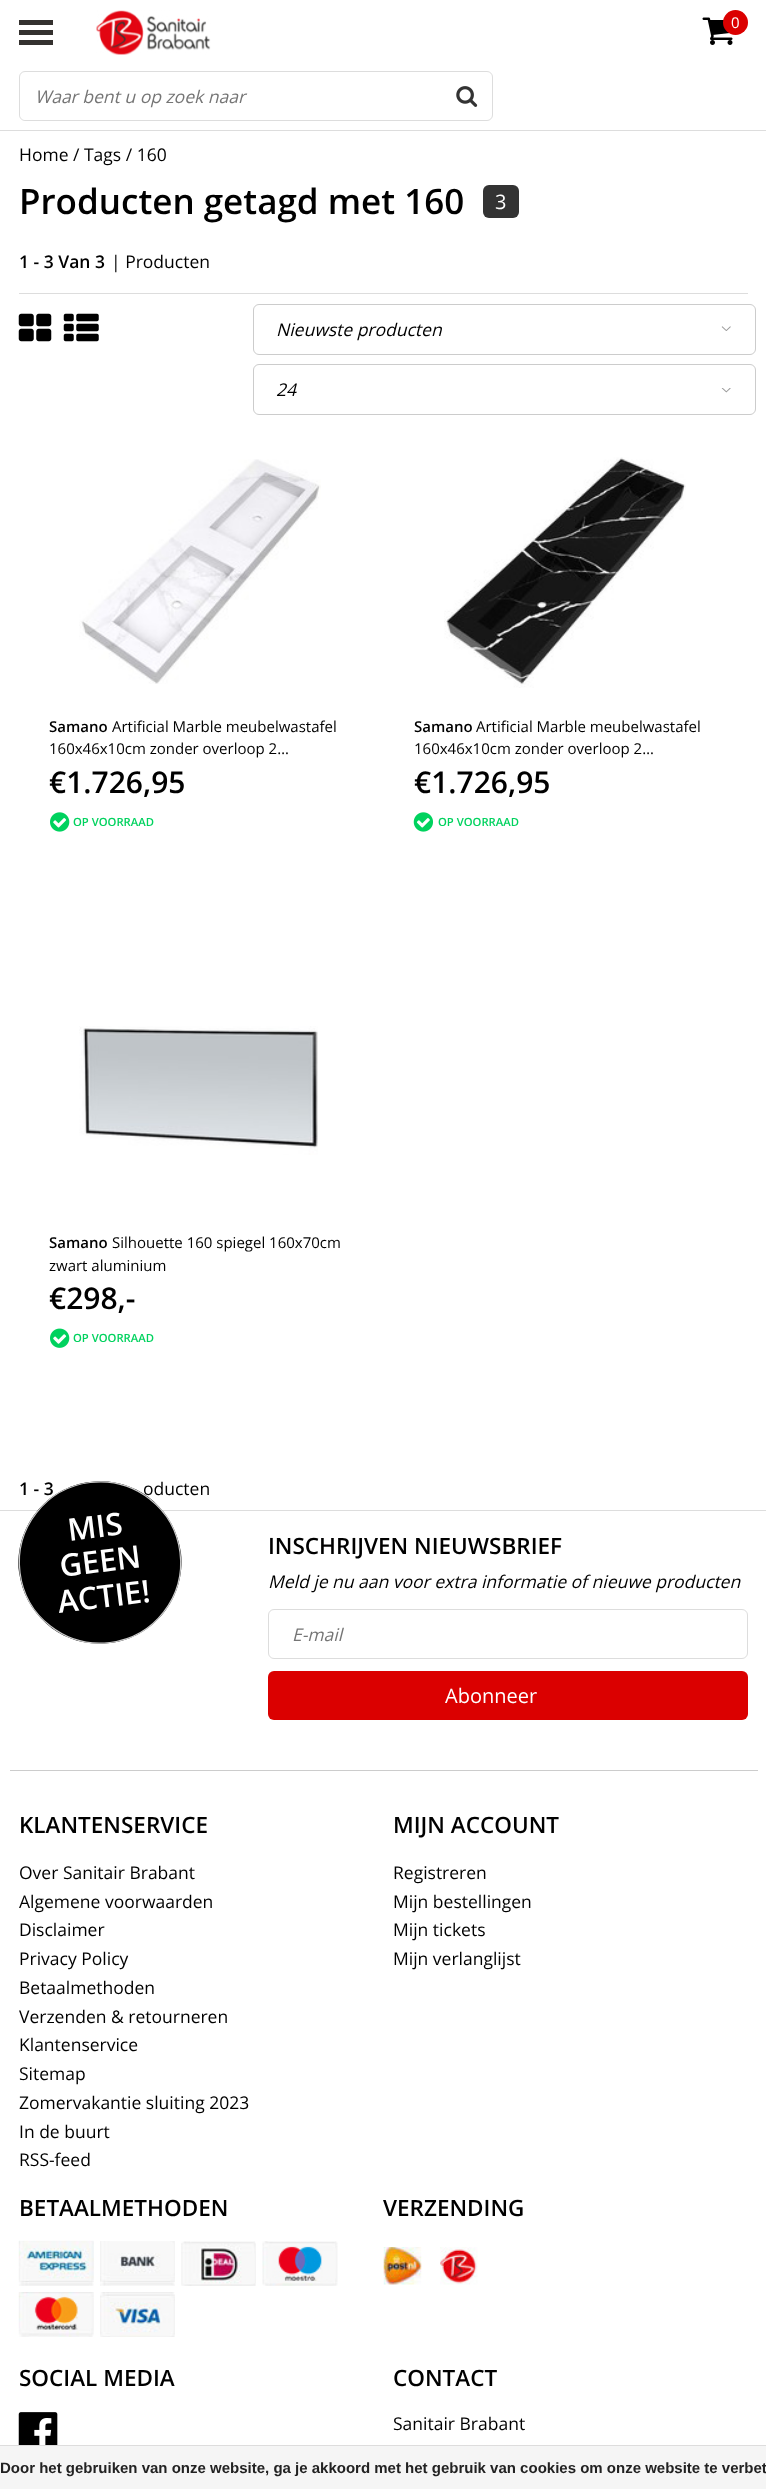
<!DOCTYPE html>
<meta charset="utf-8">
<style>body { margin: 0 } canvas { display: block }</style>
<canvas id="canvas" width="766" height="2489"></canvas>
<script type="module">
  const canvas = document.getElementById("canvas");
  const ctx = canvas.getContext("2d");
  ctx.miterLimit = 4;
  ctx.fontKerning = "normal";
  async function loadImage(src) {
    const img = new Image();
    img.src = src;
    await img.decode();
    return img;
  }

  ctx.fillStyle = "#ffffff";
  ctx.fillRect(0, 0, 766, 2489);
  ctx.fillStyle = "#dddddd";
  ctx.fillRect(0, 130, 766, 1);
  ctx.fillStyle = "#34312f";
  ctx.fillRect(19, 20, 34, 5);
  ctx.fillRect(19, 30, 34, 5);
  ctx.fillRect(19, 40, 34, 5);
  ctx.drawImage(await loadImage("img1.png"), 96, 10, 115, 45);
  ctx.drawImage(await loadImage("img2.png"), 702, 17, 31, 28);
  ctx.fillStyle = "#db0000";
  ctx.beginPath();
  ctx.arc(735.5, 22.5, 12.5, 0, Math.PI * 2);
  ctx.fill();
  ctx.font = "15px Open Sans";
  ctx.fillStyle = "#ffffff";
  ctx.fillText("0", 731, 28);
  ctx.beginPath();
  ctx.roundRect(19.5, 71.5, 473, 49, 5.5);
  ctx.strokeStyle = "#dddddd";
  ctx.stroke();
  ctx.beginPath();
  ctx.roundRect(20, 73, 471, 47, 6);
  ctx.fill();
  ctx.font = "italic 17.5px Open Sans";
  ctx.fillStyle = "#757575";
  ctx.fillText("Waar bent u op zoek naar", 35, 103);
  ctx.drawImage(await loadImage("img3.png"), 456, 86, 22, 21);
  ctx.font = "17.5px Open Sans";
  ctx.fillStyle = "#000000";
  ctx.fillText("Home / Tags / 160", 19, 161);
  ctx.font = "600 35px Open Sans";
  ctx.fillText("Producten getagd met 160", 19, 214);
  ctx.fillStyle = "#333333";
  ctx.beginPath();
  ctx.roundRect(483, 185, 36, 33, 6);
  ctx.fill();
  ctx.font = "20px Open Sans";
  ctx.fillStyle = "#ffffff";
  ctx.fillText("3", 495, 209);
  ctx.font = "600 17.5px Open Sans";
  ctx.fillStyle = "#000000";
  ctx.fillText("1 - 3 Van 3", 19, 268);
  ctx.font = "17.5px Open Sans";
  ctx.fillText("| Producten", 111, 268);
  ctx.fillStyle = "#dddddd";
  ctx.fillRect(19, 293, 729, 1);
  ctx.drawImage(await loadImage("img4.png"), 18, 313, 34, 29);
  ctx.drawImage(await loadImage("img5.png"), 63, 313, 36, 29);
  ctx.drawImage(await loadImage("img6.png"), 721, 326, 10, 5);
  ctx.beginPath();
  ctx.roundRect(253.5, 304.5, 502, 50, 5.5);
  ctx.strokeStyle = "#cccccc";
  ctx.stroke();
  ctx.font = "italic 17.5px Open Sans";
  ctx.fillStyle = "#000000";
  ctx.fillText("Nieuwste producten", 276, 336);
  ctx.drawImage(await loadImage("img7.png"), 721, 388, 10, 5);
  ctx.beginPath();
  ctx.roundRect(253.5, 364.5, 502, 50, 5.5);
  ctx.stroke();
  ctx.fillText("24", 276, 396);
  ctx.drawImage(await loadImage("img8.png"), 79, 459, 242, 225);
  ctx.font = "600 15px Open Sans";
  ctx.fillText("Samano", 49, 732);
  ctx.font = "15px Open Sans";
  ctx.fillText("Artificial Marble meubelwastafel", 112, 732);
  ctx.fillText("160x46x10cm zonder overloop 2…", 49, 754);
  ctx.font = "600 30px Open Sans";
  ctx.fillText("€1.726,95", 49, 793);
  ctx.drawImage(await loadImage("img9.png"), 50, 812, 20, 20);
  ctx.font = "600 11.25px Open Sans";
  ctx.fillStyle = "#00d25e";
  ctx.fillText("OP VOORRAAD", 73, 826);
  ctx.drawImage(await loadImage("img10.png"), 444, 457, 242, 231);
  ctx.font = "600 15px Open Sans";
  ctx.fillStyle = "#000000";
  ctx.fillText("Samano", 414, 732);
  ctx.font = "15px Open Sans";
  ctx.fillText("Artificial Marble meubelwastafel", 476, 732);
  ctx.fillText("160x46x10cm zonder overloop 2…", 414, 754);
  ctx.font = "600 30px Open Sans";
  ctx.fillText("€1.726,95", 414, 793);
  ctx.drawImage(await loadImage("img11.png"), 413, 812, 20, 20);
  ctx.font = "600 11.25px Open Sans";
  ctx.fillStyle = "#00d25e";
  ctx.fillText("OP VOORRAAD", 438, 826);
  ctx.drawImage(await loadImage("img12.png"), 79, 1026, 239, 129);
  ctx.font = "600 15px Open Sans";
  ctx.fillStyle = "#000000";
  ctx.fillText("Samano", 49, 1248);
  ctx.font = "15px Open Sans";
  ctx.fillText("Silhouette 160 spiegel 160x70cm", 112, 1248);
  ctx.fillText("zwart aluminium", 49, 1271);
  ctx.font = "600 30px Open Sans";
  ctx.fillText("€298,-", 49, 1309);
  ctx.drawImage(await loadImage("img13.png"), 50, 1328, 20, 20);
  ctx.font = "600 11.25px Open Sans";
  ctx.fillStyle = "#00d25e";
  ctx.fillText("OP VOORRAAD", 73, 1342);
  ctx.font = "600 17.5px Open Sans";
  ctx.fillStyle = "#000000";
  ctx.fillText("1 - 3", 19, 1495);
  ctx.font = "17.5px Open Sans";
  ctx.fillText("oducten", 143, 1495);
  ctx.fillStyle = "#dddddd";
  ctx.fillRect(0, 1510, 766, 1);
  ctx.fillStyle = "#000000";
  ctx.beginPath();
  ctx.moveTo(90, 1482);
  ctx.bezierCurveTo(135, 1476, 175, 1508, 181, 1553);
  ctx.bezierCurveTo(186, 1597, 154, 1638, 110, 1643);
  ctx.bezierCurveTo(65, 1649, 25, 1617, 19, 1572);
  ctx.bezierCurveTo(14, 1528, 46, 1487, 90, 1482);
  ctx.closePath();
  ctx.fill();
  ctx.beginPath();
  ctx.moveTo(90, 1482.5);
  ctx.bezierCurveTo(134.5, 1477, 174.5, 1508.5, 180, 1552.5);
  ctx.bezierCurveTo(185.5, 1597, 154, 1637, 110, 1642.5);
  ctx.bezierCurveTo(65.5, 1648, 25.5, 1616.5, 20, 1572.5);
  ctx.bezierCurveTo(14.5, 1528, 46, 1488, 90, 1482.5);
  ctx.closePath();
  ctx.lineWidth = 1.2;
  ctx.stroke();
  ctx.font = "600 31px Open Sans";
  ctx.fillStyle = "#ffffff";
  ctx.save();
  ctx.translate(69, 1541);
  ctx.rotate(-7 * Math.PI / 180);
  ctx.fillText("MIS", 0, 0);
  ctx.restore();
  ctx.save();
  ctx.translate(61, 1577);
  ctx.rotate(-7 * Math.PI / 180);
  ctx.fillText("GEEN", 0, 0);
  ctx.restore();
  ctx.save();
  ctx.translate(59, 1613);
  ctx.rotate(-7 * Math.PI / 180);
  ctx.fillText("ACTIE!", 0, 0);
  ctx.restore();
  ctx.font = "600 22.5px Open Sans";
  ctx.fillStyle = "#000000";
  ctx.fillText("INSCHRIJVEN NIEUWSBRIEF", 268, 1554);
  ctx.font = "italic 17.5px Open Sans";
  ctx.fillText("Meld je nu aan voor extra informatie of nieuwe producten", 268, 1588);
  ctx.beginPath();
  ctx.roundRect(268.5, 1609.5, 479, 49, 5.5);
  ctx.strokeStyle = "#dddddd";
  ctx.lineWidth = 1;
  ctx.stroke();
  ctx.fillStyle = "#757575";
  ctx.fillText("E-mail", 292, 1641);
  ctx.fillStyle = "#db0000";
  ctx.beginPath();
  ctx.roundRect(268, 1671, 480, 49, 6);
  ctx.fill();
  ctx.font = "20px Open Sans";
  ctx.fillStyle = "#ffffff";
  ctx.fillText("Abonneer", 445, 1703);
  ctx.fillStyle = "#cccccc";
  ctx.fillRect(10, 1770, 748, 1);
  ctx.font = "600 22.5px Open Sans";
  ctx.fillStyle = "#000000";
  ctx.fillText("KLANTENSERVICE", 19, 1833);
  ctx.font = "17.5px Open Sans";
  ctx.fillText("Over Sanitair Brabant", 19, 1879);
  ctx.fillText("Algemene voorwaarden", 19, 1908);
  ctx.fillText("Disclaimer", 19, 1936);
  ctx.fillText("Privacy Policy", 19, 1965);
  ctx.fillText("Betaalmethoden", 19, 1994);
  ctx.fillText("Verzenden & retourneren", 19, 2023);
  ctx.fillText("Klantenservice", 19, 2051);
  ctx.fillText("Sitemap", 19, 2080);
  ctx.fillText("Zomervakantie sluiting 2023", 19, 2109);
  ctx.fillText("In de buurt", 19, 2138);
  ctx.fillText("RSS-feed", 19, 2166);
  ctx.font = "600 22.5px Open Sans";
  ctx.fillText("MIJN ACCOUNT", 393, 1833);
  ctx.font = "17.5px Open Sans";
  ctx.fillText("Registreren", 393, 1879);
  ctx.fillText("Mijn bestellingen", 393, 1908);
  ctx.fillText("Mijn tickets", 393, 1936);
  ctx.fillText("Mijn verlanglijst", 393, 1965);
  ctx.font = "600 22.5px Open Sans";
  ctx.fillText("BETAALMETHODEN", 19, 2216);
  ctx.drawImage(await loadImage("img14.png"), 18, 2240, 76, 46);
  ctx.drawImage(await loadImage("img15.png"), 100, 2241, 75, 45);
  ctx.drawImage(await loadImage("img16.png"), 181, 2241, 75, 45);
  ctx.drawImage(await loadImage("img17.png"), 262, 2241, 76, 45);
  ctx.drawImage(await loadImage("img18.png"), 18, 2292, 76, 45);
  ctx.drawImage(await loadImage("img19.png"), 100, 2292, 75, 45);
  ctx.fillText("VERZENDING", 383, 2216);
  ctx.drawImage(await loadImage("img20.png"), 383, 2247, 39, 38);
  ctx.drawImage(await loadImage("img21.png"), 440, 2247, 38, 38);
  ctx.fillText("SOCIAL MEDIA", 19, 2386);
  ctx.drawImage(await loadImage("img22.png"), 18, 2412, 40, 33);
  ctx.fillText("CONTACT", 393, 2386);
  ctx.font = "17.5px Open Sans";
  ctx.fillText("Sanitair Brabant", 393, 2430);
  ctx.fillStyle = "#f5f5f5";
  ctx.fillRect(0, 2446, 766, 43);
  ctx.fillStyle = "#dddddd";
  ctx.fillRect(0, 2445, 766, 1);
  ctx.font = "bold 15px Liberation Sans";
  ctx.fillStyle = "#222222";
  ctx.fillText("Door het gebruiken van onze website, ga je akkoord met het gebruik van cookies om onze website te verbet", 0, 2473);
</script>
